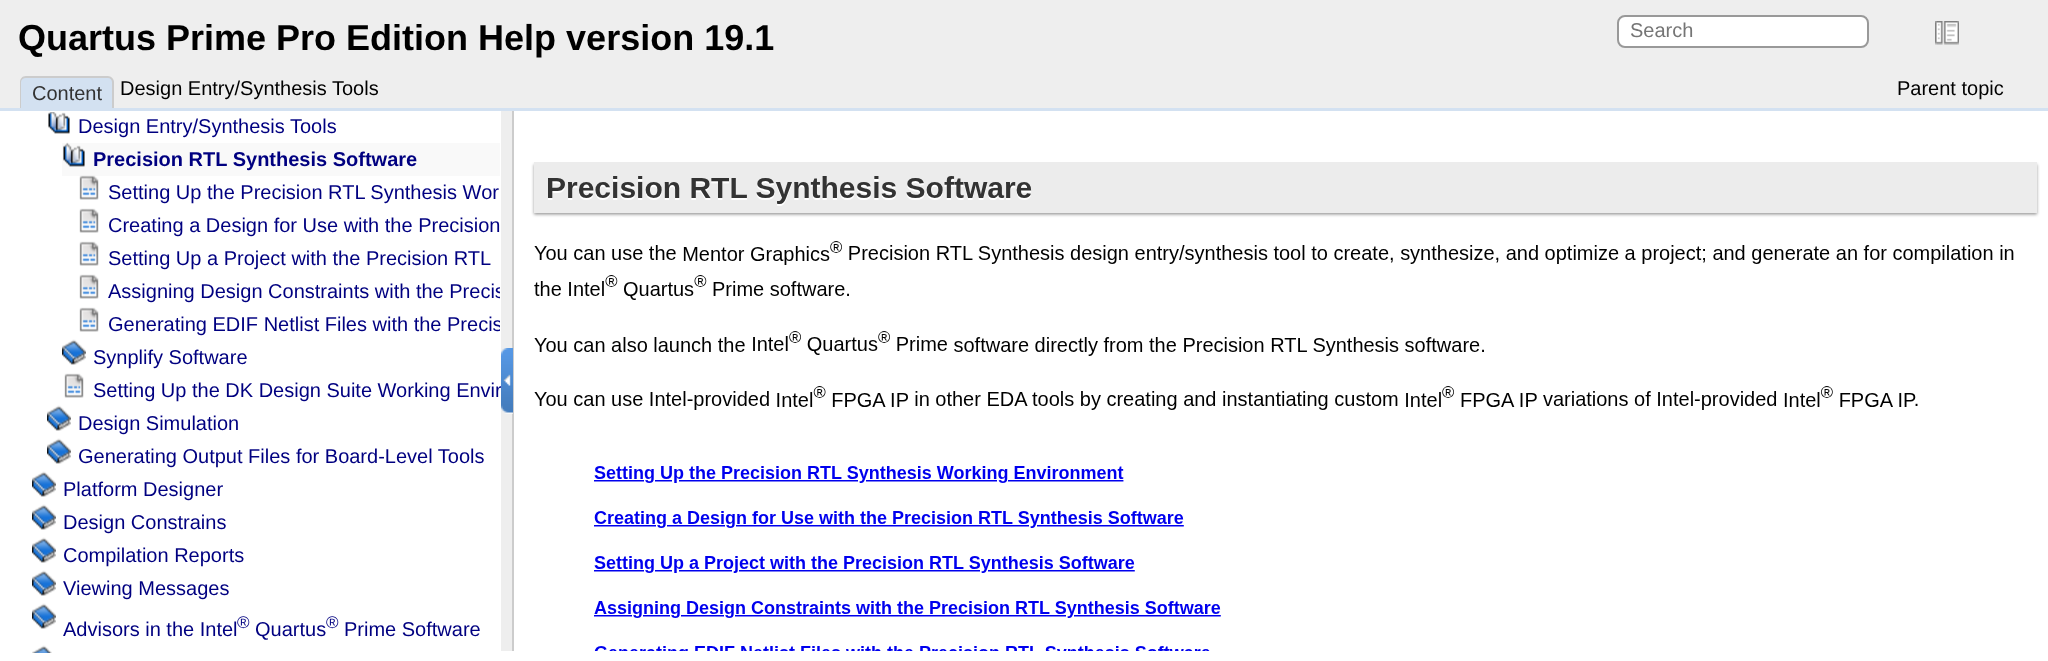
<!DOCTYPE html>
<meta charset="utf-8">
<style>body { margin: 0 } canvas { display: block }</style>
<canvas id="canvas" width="2048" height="661"></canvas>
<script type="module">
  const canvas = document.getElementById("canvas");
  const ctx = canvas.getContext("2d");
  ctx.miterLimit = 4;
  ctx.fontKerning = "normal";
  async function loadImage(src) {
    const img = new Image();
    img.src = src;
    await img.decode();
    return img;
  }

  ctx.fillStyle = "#ffffff";
  ctx.fillRect(0, 0, 2048, 661);
  ctx.fillStyle = "#eeeeee";
  ctx.fillRect(0, 0, 2048, 108);
  ctx.font = "bold 36px Liberation Sans";
  ctx.fillStyle = "#000000";
  ctx.fillText("Quartus Prime Pro Edition Help version 19.1", 18, 50);
  ctx.fillStyle = "#ffffff";
  ctx.beginPath();
  ctx.roundRect(1618, 16, 250, 31, 7);
  ctx.fill();
  ctx.strokeStyle = "#999999";
  ctx.lineWidth = 2;
  ctx.stroke();
  ctx.font = "20px Liberation Sans";
  ctx.fillStyle = "#757575";
  ctx.fillText("Search", 1630, 37);
  ctx.drawImage(await loadImage("img1.png"), 1935, 21, 24, 24);
  ctx.fillStyle = "#d3e1f1";
  ctx.beginPath();
  ctx.roundRect(20, 77, 94, 31, [6, 6, 0, 0]);
  ctx.fill();
  ctx.fillStyle = "#cccccc";
  ctx.beginPath();
  ctx.moveTo(26, 76);
  ctx.lineTo(108, 76);
  ctx.bezierCurveTo(111, 76, 114, 79, 114, 82);
  ctx.lineTo(114, 108);
  ctx.lineTo(20, 108);
  ctx.lineTo(20, 82);
  ctx.bezierCurveTo(20, 79, 22, 76, 26, 76);
  ctx.closePath();
  ctx.moveTo(26, 78);
  ctx.lineTo(108, 78);
  ctx.bezierCurveTo(110, 78, 112, 80, 112, 82);
  ctx.lineTo(112, 108);
  ctx.lineTo(21, 108);
  ctx.lineTo(21, 82);
  ctx.bezierCurveTo(21, 80, 23, 78, 26, 78);
  ctx.closePath();
  ctx.fill("evenodd");
  ctx.fillStyle = "#333333";
  ctx.fillText("Content", 32, 100);
  ctx.fillStyle = "#000000";
  ctx.fillText("Design Entry/Synthesis Tools", 120, 95);
  ctx.fillText("Parent topic", 1897, 95);
  ctx.fillStyle = "#d3e1f1";
  ctx.fillRect(0, 108, 2048, 3);
  ctx.drawImage(await loadImage("img2.png"), 48, 112, 22, 22);
  ctx.fillStyle = "#000080";
  ctx.fillText("Design Entry/Synthesis Tools", 78, 133);
  ctx.fillStyle = "#f9f9f9";
  ctx.fillRect(62, 143, 438, 33);
  ctx.drawImage(await loadImage("img3.png"), 63, 142, 22, 25);
  ctx.font = "bold 20px Liberation Sans";
  ctx.fillStyle = "#000080";
  ctx.fillText("Precision RTL Synthesis Software", 93, 166);
  ctx.drawImage(await loadImage("img4.png"), 79, 175, 20, 25);
  ctx.font = "20px Liberation Sans";
  ctx.fillText("Setting Up the Precision RTL Synthesis Wor", 108, 199);
  ctx.drawImage(await loadImage("img5.png"), 79, 208, 20, 25);
  ctx.fillText("Creating a Design for Use with the Precision", 108, 232);
  ctx.drawImage(await loadImage("img5.png"), 79, 241, 20, 25);
  ctx.fillText("Setting Up a Project with the Precision RTL", 108, 265);
  ctx.drawImage(await loadImage("img6.png"), 79, 274, 20, 25);
  ctx.save();
  ctx.beginPath();
  ctx.rect(2, 113, 498, 540);
  ctx.clip();
  ctx.fillText("Assigning Design Constraints with the Precis", 108, 298);
  ctx.restore();
  ctx.drawImage(await loadImage("img5.png"), 79, 307, 20, 25);
  ctx.save();
  ctx.beginPath();
  ctx.rect(2, 113, 498, 540);
  ctx.clip();
  ctx.fillText("Generating EDIF Netlist Files with the Precis", 108, 331);
  ctx.restore();
  ctx.drawImage(await loadImage("img7.png"), 62, 339, 24, 26);
  ctx.fillText("Synplify Software", 93, 364);
  ctx.drawImage(await loadImage("img5.png"), 64, 373, 20, 25);
  ctx.fillText("Setting Up the DK Design Suite Working Envir", 93, 397);
  ctx.drawImage(await loadImage("img7.png"), 47, 405, 24, 26);
  ctx.fillText("Design Simulation", 78, 430);
  ctx.drawImage(await loadImage("img7.png"), 47, 438, 24, 26);
  ctx.fillText("Generating Output Files for Board-Level Tools", 78, 463);
  ctx.drawImage(await loadImage("img7.png"), 32, 471, 24, 26);
  ctx.fillText("Platform Designer", 63, 496);
  ctx.drawImage(await loadImage("img7.png"), 32, 504, 24, 26);
  ctx.fillText("Design Constrains", 63, 529);
  ctx.drawImage(await loadImage("img7.png"), 32, 537, 24, 26);
  ctx.fillText("Compilation Reports", 63, 562);
  ctx.drawImage(await loadImage("img7.png"), 32, 570, 24, 26);
  ctx.fillText("Viewing Messages", 63, 595);
  ctx.drawImage(await loadImage("img7.png"), 32, 603, 24, 26);
  ctx.fillText("Advisors in the Intel", 63, 636);
  ctx.font = "17px Liberation Sans";
  ctx.fillText("®", 237, 628);
  ctx.font = "20px Liberation Sans";
  ctx.fillText("Quartus", 255, 636);
  ctx.font = "17px Liberation Sans";
  ctx.fillText("®", 326, 628);
  ctx.font = "20px Liberation Sans";
  ctx.fillText("Prime Software", 344, 636);
  ctx.drawImage(await loadImage("img8.png"), 32, 645, 20, 8);
  ctx.fillStyle = "#eeeeee";
  ctx.fillRect(501, 111, 11, 540);
  ctx.fillStyle = "#cccccc";
  ctx.fillRect(512, 111, 2, 540);
  ctx.drawImage(await loadImage("img9.png"), 501, 348, 12, 66);
  ctx.drawImage(await loadImage("img10.png"), 531, 162, 1509, 489);
</script>
